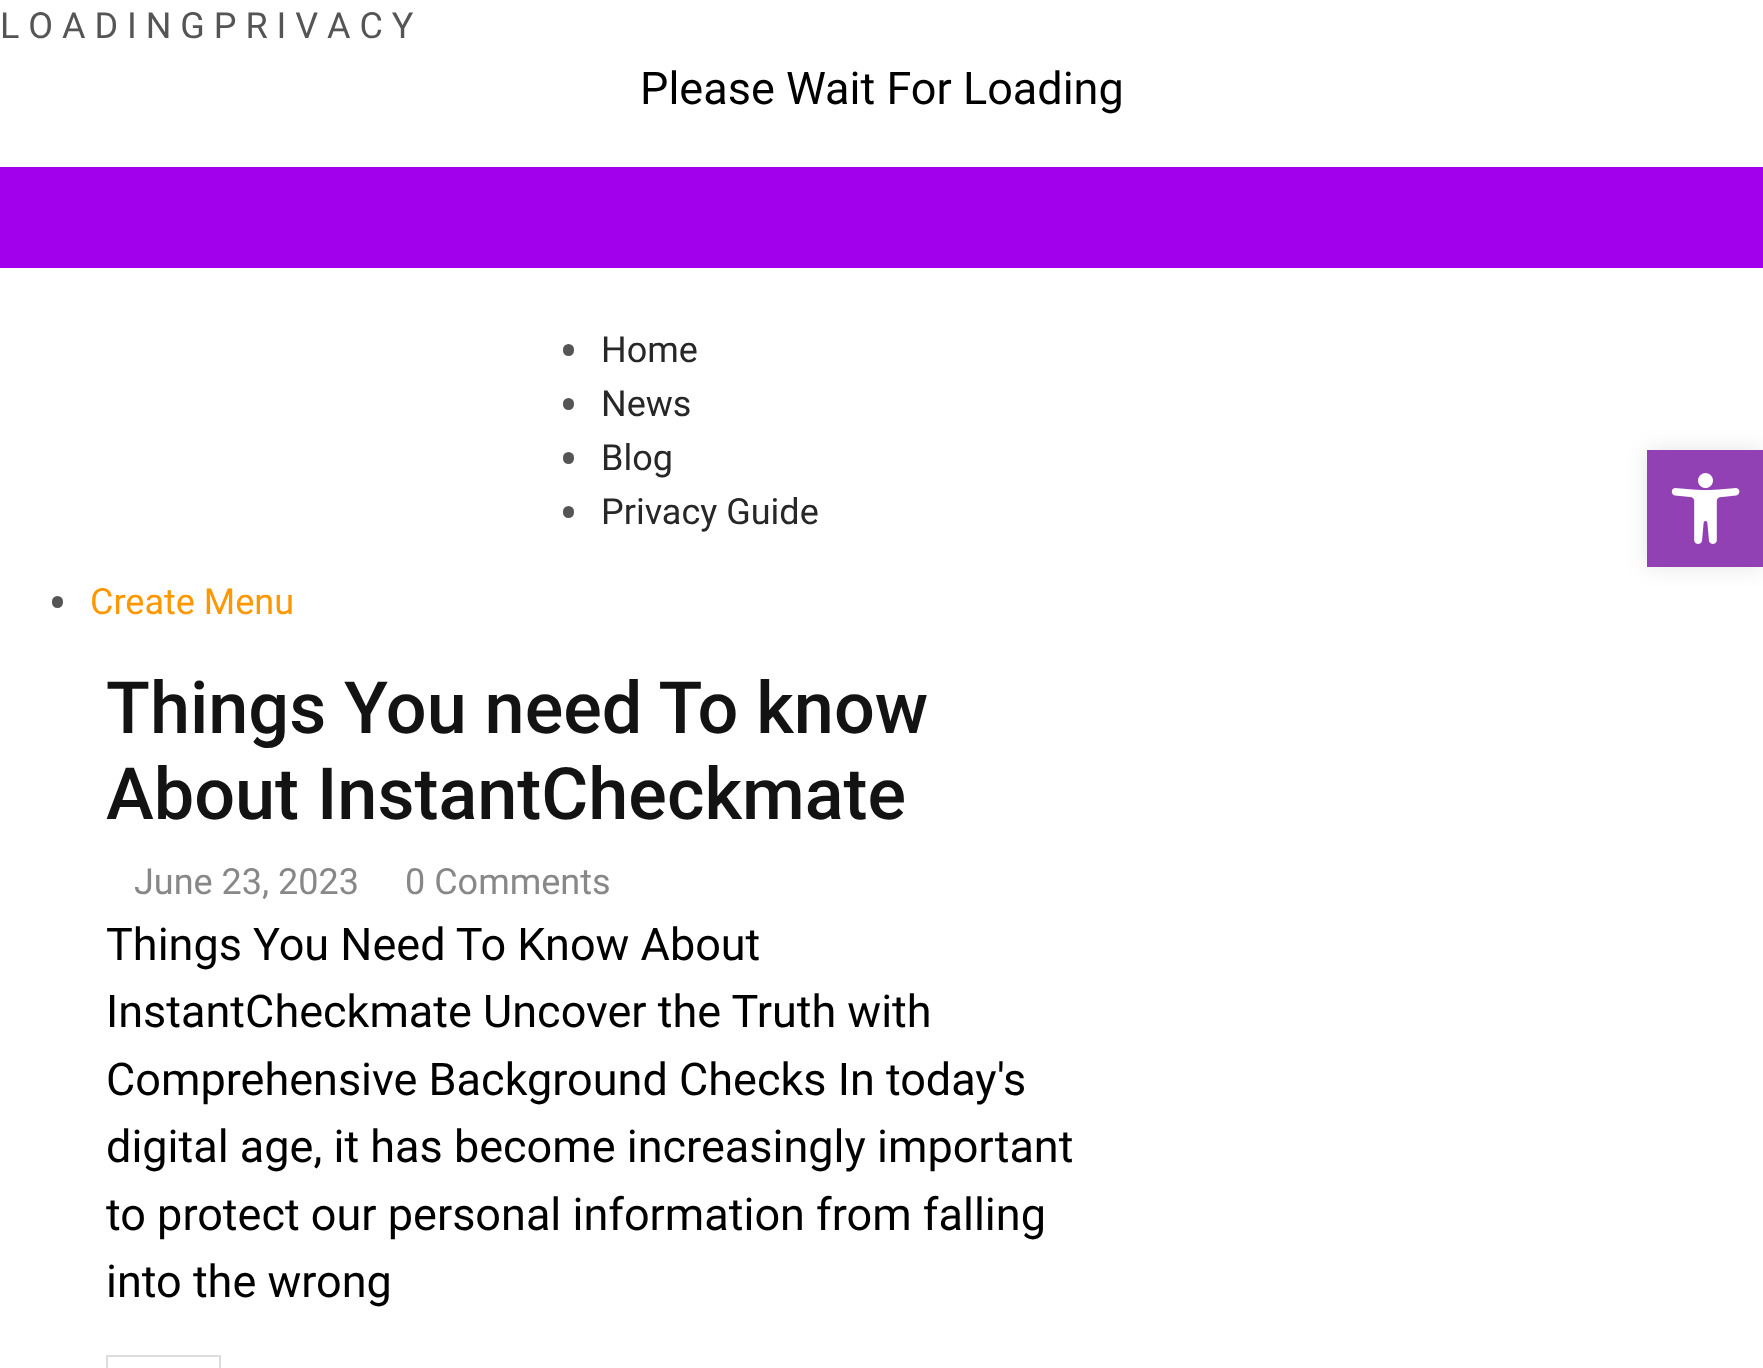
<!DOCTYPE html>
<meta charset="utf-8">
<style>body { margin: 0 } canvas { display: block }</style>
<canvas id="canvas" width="1763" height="1368"></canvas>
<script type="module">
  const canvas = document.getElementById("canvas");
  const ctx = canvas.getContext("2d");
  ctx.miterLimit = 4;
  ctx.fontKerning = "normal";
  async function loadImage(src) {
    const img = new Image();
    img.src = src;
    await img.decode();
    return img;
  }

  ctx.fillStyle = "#ffffff";
  ctx.fillRect(0, 0, 1763, 1368);
  ctx.font = "36px Roboto";
  ctx.fillStyle = "#555555";
  ctx.fillText("L O A D I N G P R I V A C Y", 0, 38);
  ctx.font = "45px Roboto";
  ctx.fillStyle = "#000000";
  ctx.fillText("Please Wait For Loading", 640, 104);
  ctx.fillStyle = "#a200ed";
  ctx.fillRect(0, 167, 1763, 101);
  ctx.fillStyle = "#555555";
  ctx.beginPath();
  ctx.roundRect(563, 344, 11, 12, 5.5);
  ctx.fill();
  ctx.font = "36px Roboto";
  ctx.fillStyle = "#272727";
  ctx.fillText("Home", 601, 362);
  ctx.fillStyle = "#555555";
  ctx.beginPath();
  ctx.roundRect(563, 398, 11, 12, 5.5);
  ctx.fill();
  ctx.fillStyle = "#272727";
  ctx.fillText("News", 601, 416);
  ctx.fillStyle = "#555555";
  ctx.beginPath();
  ctx.roundRect(563, 452, 11, 12, 5.5);
  ctx.fill();
  ctx.fillStyle = "#272727";
  ctx.fillText("Blog", 601, 470);
  ctx.fillStyle = "#555555";
  ctx.beginPath();
  ctx.roundRect(563, 506, 11, 12, 5.5);
  ctx.fill();
  ctx.fillStyle = "#272727";
  ctx.fillText("Privacy Guide", 601, 524);
  ctx.fillStyle = "#555555";
  ctx.beginPath();
  ctx.roundRect(52, 596, 11, 12, 5.5);
  ctx.fill();
  ctx.fillStyle = "#ff9800";
  ctx.fillText("Create Menu", 90, 614);
  ctx.font = "500 72px Roboto";
  ctx.fillStyle = "#131313";
  ctx.fillText("Things You need To know", 106, 733);
  ctx.fillText("About InstantCheckmate", 106, 819);
  ctx.font = "36px Roboto";
  ctx.fillStyle = "#888888";
  ctx.fillText("June 23, 2023", 134, 894);
  ctx.fillText("0 Comments", 405, 894);
  ctx.font = "45px Roboto";
  ctx.fillStyle = "#000000";
  ctx.fillText("Things You Need To Know About", 106, 960);
  ctx.fillText("InstantCheckmate Uncover the Truth with", 106, 1027);
  ctx.fillText("Comprehensive Background Checks In today's", 106, 1095);
  ctx.fillText("digital age, it has become increasingly important", 106, 1162);
  ctx.fillText("to protect our personal information from falling", 106, 1230);
  ctx.fillText("into the wrong", 106, 1297);
  ctx.strokeStyle = "#dddddd";
  ctx.lineWidth = 2;
  ctx.strokeRect(107, 1356, 113, 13);
  ctx.fillStyle = "rgba(0, 0, 0, 0.1)";
  ctx.filter = "blur(11px)";
  ctx.beginPath();
  ctx.rect(1647, 450, 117, 117);
  ctx.fill();
  ctx.filter = "none";
  ctx.fillStyle = "#9241b5";
  ctx.fillRect(1647, 450, 116, 117);
  ctx.drawImage(await loadImage("img1.png"), 1671, 473, 69, 71);
</script>
